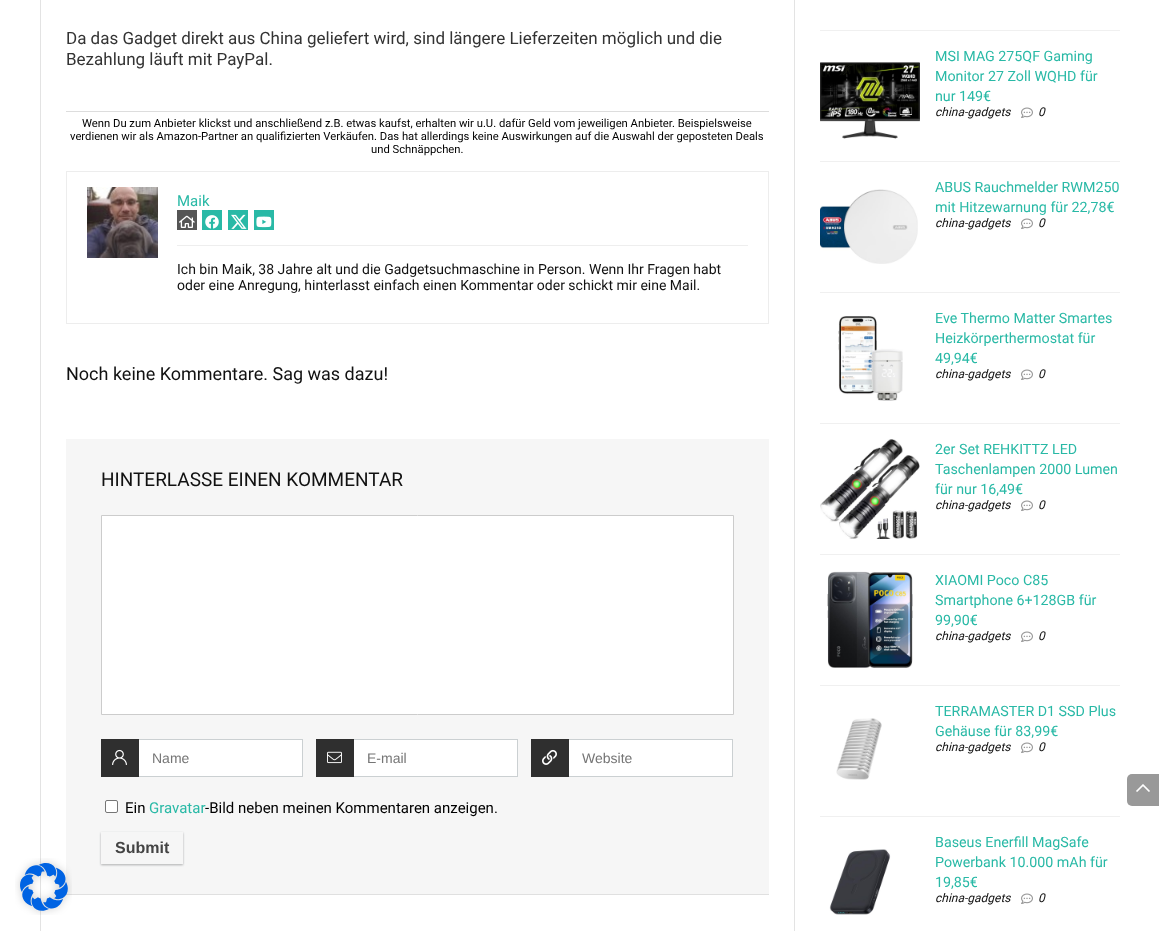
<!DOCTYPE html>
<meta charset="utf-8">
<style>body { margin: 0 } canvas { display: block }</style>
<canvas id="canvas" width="1159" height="931"></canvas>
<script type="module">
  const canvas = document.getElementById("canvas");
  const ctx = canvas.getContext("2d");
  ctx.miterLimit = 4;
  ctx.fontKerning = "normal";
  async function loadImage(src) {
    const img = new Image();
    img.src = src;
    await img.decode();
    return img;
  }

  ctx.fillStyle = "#ffffff";
  ctx.fillRect(0, 0, 1159, 931);
  ctx.strokeStyle = "#e3e3e3";
  ctx.strokeRect(40.5, -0.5, 754, 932);
  ctx.font = "17px Roboto";
  ctx.fillStyle = "#333333";
  ctx.fillText("Da das Gadget direkt aus China geliefert wird, sind längere Lieferzeiten möglich und die", 66, 44);
  ctx.fillText("Bezahlung läuft mit PayPal.", 66, 65);
  ctx.fillStyle = "#dddddd";
  ctx.fillRect(66, 111, 703, 1);
  ctx.font = "11.25px Roboto";
  ctx.fillStyle = "#000000";
  ctx.fillText("Wenn Du zum Anbieter klickst und anschließend z.B. etwas kaufst, erhalten wir u.U. dafür Geld vom jeweiligen Anbieter. Beispielsweise", 82, 127);
  ctx.fillText("verdienen wir als Amazon-Partner an qualifizierten Verkäufen. Das hat allerdings keine Auswirkungen auf die Auswahl der geposteten Deals", 70, 140);
  ctx.fillText("und Schnäppchen.", 371, 153);
  ctx.strokeStyle = "#ededed";
  ctx.strokeRect(66.5, 171.5, 702, 152);
  ctx.drawImage(await loadImage("img1.png"), 87, 187, 71, 71);
  ctx.font = "15px Roboto";
  ctx.fillStyle = "#29b9a6";
  ctx.fillText("Maik", 177, 206);
  ctx.fillStyle = "#eeeeee";
  ctx.fillRect(177, 245, 571, 1);
  ctx.fillStyle = "#555555";
  ctx.fillRect(177, 210, 20, 20);
  ctx.drawImage(await loadImage("img2.png"), 179, 215, 16, 13);
  ctx.fillStyle = "#29b9a6";
  ctx.fillRect(202, 210, 20, 20);
  ctx.drawImage(await loadImage("img3.png"), 205, 215, 14, 14);
  ctx.fillRect(228, 210, 20, 20);
  ctx.drawImage(await loadImage("img4.png"), 231, 214, 16, 15);
  ctx.fillRect(254, 210, 20, 20);
  ctx.drawImage(await loadImage("img5.png"), 256, 216, 16, 12);
  ctx.font = "14px Roboto";
  ctx.fillStyle = "#111111";
  ctx.fillText("Ich bin Maik, 38 Jahre alt und die Gadgetsuchmaschine in Person. Wenn Ihr Fragen habt", 177, 274);
  ctx.fillText("oder eine Anregung, hinterlasst einfach einen Kommentar oder schickt mir eine Mail.", 177, 290);
  ctx.font = "18px Roboto";
  ctx.fillText("Noch keine Kommentare. Sag was dazu!", 66, 380);
  ctx.fillStyle = "rgba(0, 0, 0, 0.12)";
  ctx.filter = "blur(0.5px)";
  ctx.beginPath();
  ctx.rect(66, 440, 703, 455);
  ctx.fill();
  ctx.filter = "none";
  ctx.fillStyle = "#f6f6f6";
  ctx.fillRect(66, 439, 703, 455);
  ctx.font = "19px Roboto";
  ctx.fillStyle = "#111111";
  ctx.fillText("HINTERLASSE EINEN KOMMENTAR", 101, 486);
  ctx.fillStyle = "#ffffff";
  ctx.beginPath();
  ctx.rect(101.5, 515.5, 632, 199);
  ctx.fill();
  ctx.strokeStyle = "#cccccc";
  ctx.stroke();
  ctx.fillRect(139, 740, 163, 36);
  ctx.strokeStyle = "#cbd0d2";
  ctx.strokeRect(101.5, 739.5, 201, 37);
  ctx.fillStyle = "#2f2f2f";
  ctx.fillRect(101, 739, 38, 38);
  ctx.drawImage(await loadImage("img6.png"), 112, 749, 15, 16);
  ctx.font = "14px Liberation Sans";
  ctx.fillStyle = "#757575";
  ctx.fillText("Name", 152, 763);
  ctx.fillStyle = "#ffffff";
  ctx.fillRect(354, 740, 163, 36);
  ctx.strokeRect(316.5, 739.5, 201, 37);
  ctx.fillStyle = "#2f2f2f";
  ctx.fillRect(316, 739, 38, 38);
  ctx.drawImage(await loadImage("img7.png"), 327, 751, 15, 13);
  ctx.fillStyle = "#757575";
  ctx.fillText("E-mail", 367, 763);
  ctx.fillStyle = "#ffffff";
  ctx.fillRect(569, 740, 163, 36);
  ctx.strokeRect(531.5, 739.5, 201, 37);
  ctx.fillStyle = "#2f2f2f";
  ctx.fillRect(531, 739, 38, 38);
  ctx.drawImage(await loadImage("img8.png"), 542, 749, 15, 16);
  ctx.fillStyle = "#757575";
  ctx.fillText("Website", 582, 763);
  ctx.fillStyle = "#ffffff";
  ctx.beginPath();
  ctx.roundRect(105.5, 800.5, 12, 12, 1.5);
  ctx.fill();
  ctx.strokeStyle = "#767676";
  ctx.stroke();
  ctx.font = "15px Roboto";
  ctx.fillStyle = "#000000";
  ctx.fillText("Ein", 125, 813);
  ctx.fillStyle = "#29b9a6";
  ctx.fillText("Gravatar", 149, 813);
  ctx.fillStyle = "#000000";
  ctx.fillText("-Bild neben meinen Kommentaren anzeigen.", 205, 813);
  ctx.save();
  ctx.beginPath();
  ctx.moveTo(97, 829);
  ctx.lineTo(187, 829);
  ctx.lineTo(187, 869);
  ctx.lineTo(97, 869);
  ctx.closePath();
  ctx.moveTo(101, 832);
  ctx.lineTo(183, 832);
  ctx.lineTo(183, 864);
  ctx.lineTo(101, 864);
  ctx.closePath();
  ctx.clip("evenodd");
  ctx.fillStyle = "rgba(0, 0, 0, 0.08)";
  ctx.filter = "blur(1px)";
  ctx.beginPath();
  ctx.rect(101, 833, 82, 32);
  ctx.fill();
  ctx.filter = "none";
  ctx.fillStyle = "rgba(60, 64, 67, 0.3)";
  ctx.filter = "blur(1px)";
  ctx.beginPath();
  ctx.rect(101, 833, 82, 32);
  ctx.fill();
  ctx.filter = "none";
  ctx.restore();
  ctx.font = "bold 16px Liberation Sans";
  ctx.fillStyle = "#444444";
  ctx.fillText("Submit", 115, 853);
  ctx.fillStyle = "#f0f0f0";
  ctx.fillRect(820, 30, 300, 1);
  ctx.fillRect(820, 161, 300, 1);
  ctx.drawImage(await loadImage("img9.png"), 820, 62, 100, 77);
  ctx.font = "14.25px Roboto";
  ctx.fillStyle = "#29b9a6";
  ctx.fillText("MSI MAG 275QF Gaming", 935, 61);
  ctx.fillText("Monitor 27 Zoll WQHD für", 935, 81);
  ctx.fillText("nur 149€", 935, 101);
  ctx.font = "italic 12px Roboto";
  ctx.fillStyle = "#111111";
  ctx.fillText("china-gadgets", 935, 116);
  ctx.drawImage(await loadImage("img10.png"), 1021, 107, 12, 11);
  ctx.fillText("0", 1038, 116);
  ctx.fillStyle = "#f0f0f0";
  ctx.fillRect(820, 292, 300, 1);
  ctx.drawImage(await loadImage("img11.png"), 820, 189, 98, 75);
  ctx.font = "14.25px Roboto";
  ctx.fillStyle = "#29b9a6";
  ctx.fillText("ABUS Rauchmelder RWM250", 935, 192);
  ctx.fillText("mit Hitzewarnung für 22,78€", 935, 212);
  ctx.font = "italic 12px Roboto";
  ctx.fillStyle = "#111111";
  ctx.fillText("china-gadgets", 935, 227);
  ctx.drawImage(await loadImage("img10.png"), 1021, 218, 12, 11);
  ctx.fillText("0", 1038, 227);
  ctx.fillStyle = "#f0f0f0";
  ctx.fillRect(820, 423, 300, 1);
  ctx.drawImage(await loadImage("img12.png"), 838, 316, 65, 85);
  ctx.font = "14.25px Roboto";
  ctx.fillStyle = "#29b9a6";
  ctx.fillText("Eve Thermo Matter Smartes", 935, 323);
  ctx.fillText("Heizkörperthermostat für", 935, 343);
  ctx.fillText("49,94€", 935, 363);
  ctx.font = "italic 12px Roboto";
  ctx.fillStyle = "#111111";
  ctx.fillText("china-gadgets", 935, 378);
  ctx.drawImage(await loadImage("img10.png"), 1021, 369, 12, 11);
  ctx.fillText("0", 1038, 378);
  ctx.fillStyle = "#f0f0f0";
  ctx.fillRect(820, 554, 300, 1);
  ctx.drawImage(await loadImage("img13.png"), 820, 439, 100, 100);
  ctx.font = "14.25px Roboto";
  ctx.fillStyle = "#29b9a6";
  ctx.fillText("2er Set REHKITTZ LED", 935, 454);
  ctx.fillText("Taschenlampen 2000 Lumen", 935, 474);
  ctx.fillText("für nur 16,49€", 935, 494);
  ctx.font = "italic 12px Roboto";
  ctx.fillStyle = "#111111";
  ctx.fillText("china-gadgets", 935, 509);
  ctx.drawImage(await loadImage("img10.png"), 1021, 500, 12, 11);
  ctx.fillText("0", 1038, 509);
  ctx.fillStyle = "#f0f0f0";
  ctx.fillRect(820, 685, 300, 1);
  ctx.drawImage(await loadImage("img14.png"), 827, 571, 86, 97);
  ctx.font = "14.25px Roboto";
  ctx.fillStyle = "#29b9a6";
  ctx.fillText("XIAOMI Poco C85", 935, 585);
  ctx.fillText("Smartphone 6+128GB für", 935, 605);
  ctx.fillText("99,90€", 935, 625);
  ctx.font = "italic 12px Roboto";
  ctx.fillStyle = "#111111";
  ctx.fillText("china-gadgets", 935, 640);
  ctx.drawImage(await loadImage("img10.png"), 1021, 631, 12, 11);
  ctx.fillText("0", 1038, 640);
  ctx.fillStyle = "#f0f0f0";
  ctx.fillRect(820, 816, 300, 1);
  ctx.drawImage(await loadImage("img15.png"), 836, 718, 46, 62);
  ctx.font = "14.25px Roboto";
  ctx.fillStyle = "#29b9a6";
  ctx.fillText("TERRAMASTER D1 SSD Plus", 935, 716);
  ctx.fillText("Gehäuse für 83,99€", 935, 736);
  ctx.font = "italic 12px Roboto";
  ctx.fillStyle = "#111111";
  ctx.fillText("china-gadgets", 935, 751);
  ctx.drawImage(await loadImage("img10.png"), 1021, 742, 12, 11);
  ctx.fillText("0", 1038, 751);
  ctx.drawImage(await loadImage("img16.png"), 829, 849, 62, 66);
  ctx.font = "14.25px Roboto";
  ctx.fillStyle = "#29b9a6";
  ctx.fillText("Baseus Enerfill MagSafe", 935, 847);
  ctx.fillText("Powerbank 10.000 mAh für", 935, 867);
  ctx.fillText("19,85€", 935, 887);
  ctx.font = "italic 12px Roboto";
  ctx.fillStyle = "#111111";
  ctx.fillText("china-gadgets", 935, 902);
  ctx.drawImage(await loadImage("img10.png"), 1021, 893, 12, 11);
  ctx.fillText("0", 1038, 902);
  ctx.fillStyle = "#999999";
  ctx.beginPath();
  ctx.roundRect(1127, 774, 32, 32, [5, 0, 0, 5]);
  ctx.fill();
  ctx.drawImage(await loadImage("img17.png"), 1136, 784, 14, 8);
  ctx.drawImage(await loadImage("img18.png"), 15, 858, 57, 57);
</script>
